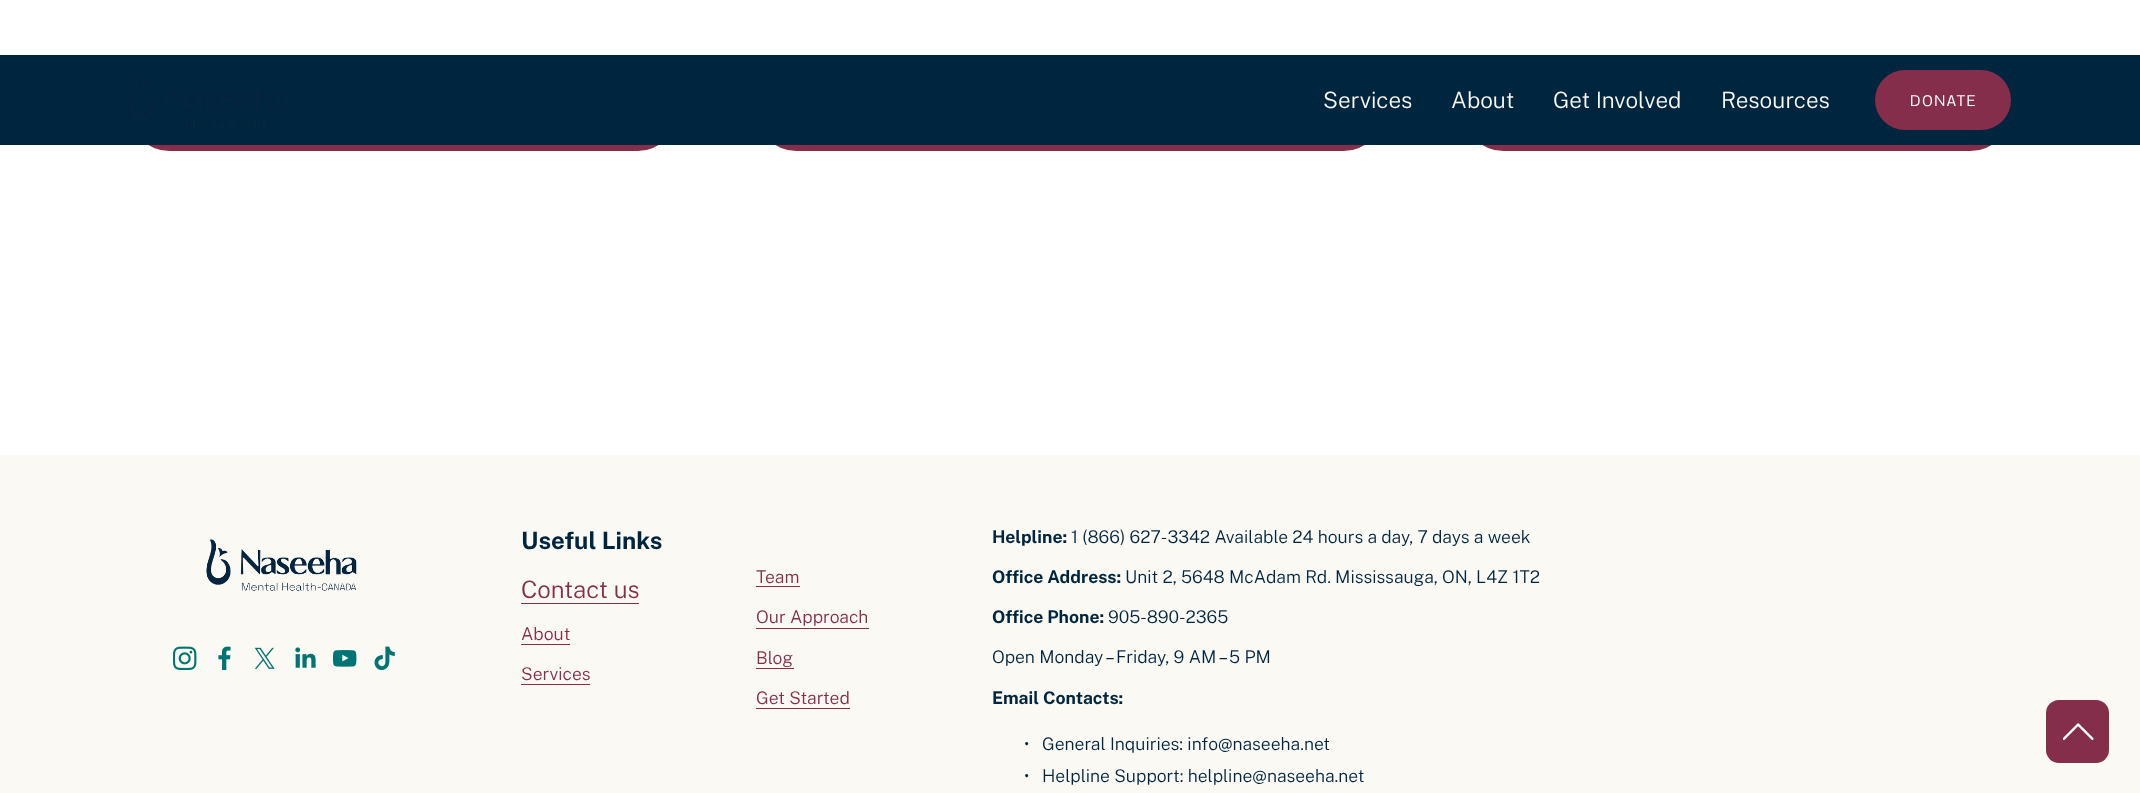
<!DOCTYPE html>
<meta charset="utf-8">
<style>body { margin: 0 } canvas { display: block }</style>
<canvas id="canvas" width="2140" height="793"></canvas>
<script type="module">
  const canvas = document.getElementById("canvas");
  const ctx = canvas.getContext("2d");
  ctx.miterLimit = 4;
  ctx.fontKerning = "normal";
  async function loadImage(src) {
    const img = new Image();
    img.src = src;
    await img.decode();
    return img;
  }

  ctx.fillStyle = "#ffffff";
  ctx.fillRect(0, 0, 2140, 793);
  ctx.fillStyle = "#852e4b";
  ctx.beginPath();
  ctx.roundRect(129, 70, 549, 81, 40.5);
  ctx.fill();
  ctx.beginPath();
  ctx.roundRect(756, 70, 628, 81, 40.5);
  ctx.fill();
  ctx.beginPath();
  ctx.roundRect(1463, 70, 548, 81, 40.5);
  ctx.fill();
  ctx.fillStyle = "#00253e";
  ctx.fillRect(0, 55, 2140, 90);
  ctx.drawImage(await loadImage("img1.png"), 129, 73, 160, 56);
  ctx.font = "300 22.5px Public Sans";
  ctx.fillStyle = "#fbf9f3";
  ctx.fillText("Services", 1323, 108);
  ctx.fillText("About", 1451, 108);
  ctx.fillText("Get Involved", 1553, 108);
  ctx.fillText("Resources", 1721, 108);
  ctx.fillStyle = "#852e4b";
  ctx.beginPath();
  ctx.roundRect(1875, 70, 136, 60, 30);
  ctx.fill();
  ctx.letterSpacing = "1.5px";
  ctx.font = "15px Pontano Sans";
  ctx.fillStyle = "#ffffff";
  ctx.fillText("DONATE", 1910, 106);
  ctx.fillStyle = "#fbf9f3";
  ctx.fillRect(0, 455, 2140, 338);
  ctx.drawImage(await loadImage("img2.png"), 206, 539, 151, 52);
  ctx.letterSpacing = "0px";
  ctx.font = "bold 24px Public Sans";
  ctx.fillStyle = "#00253e";
  ctx.fillText("Useful Links", 521, 549);
  ctx.font = "300 24px Public Sans";
  ctx.fillStyle = "#852e4b";
  ctx.fillText("Contact us", 521, 598);
  ctx.fillRect(521, 603, 118, 1);
  ctx.font = "300 17.5px Public Sans";
  ctx.fillText("About", 521, 640);
  ctx.fillRect(521, 644, 49, 1);
  ctx.fillText("Services", 521, 680);
  ctx.fillRect(521, 684, 69, 1);
  ctx.fillText("Team", 756, 583);
  ctx.fillRect(756, 586, 44, 1);
  ctx.fillText("Our Approach", 756, 623);
  ctx.fillRect(756, 628, 113, 1);
  ctx.fillText("Blog", 756, 664);
  ctx.fillRect(756, 668, 38, 1);
  ctx.fillText("Get Started", 756, 704);
  ctx.fillRect(756, 708, 94, 1);
  ctx.font = "bold 17.5px Public Sans";
  ctx.fillStyle = "#00253e";
  ctx.fillText("Helpline:", 992, 543);
  ctx.font = "300 17.5px Public Sans";
  ctx.fillText("1 (866) 627-3342 Available 24 hours a day, 7 days a week", 1071, 543);
  ctx.font = "bold 17.5px Public Sans";
  ctx.fillText("Office Address:", 992, 583);
  ctx.font = "300 17.5px Public Sans";
  ctx.fillText("Unit 2, 5648 McAdam Rd. Mississauga, ON, L4Z 1T2", 1125, 583);
  ctx.font = "bold 17.5px Public Sans";
  ctx.fillText("Office Phone:", 992, 623);
  ctx.font = "300 17.5px Public Sans";
  ctx.fillText("905-890-2365", 1108, 623);
  ctx.fillText("Open Monday – Friday, 9 AM – 5 PM", 992, 663);
  ctx.font = "bold 17.5px Public Sans";
  ctx.fillText("Email Contacts:", 992, 704);
  ctx.font = "300 17.5px Public Sans";
  ctx.fillText("•", 1024, 750);
  ctx.fillText("General Inquiries: info@naseeha.net", 1042, 750);
  ctx.fillText("•", 1024, 782);
  ctx.fillText("Helpline Support: helpline@naseeha.net", 1042, 782);
  ctx.drawImage(await loadImage("img3.png"), 173, 646, 24, 25);
  ctx.drawImage(await loadImage("img4.png"), 218, 646, 13, 25);
  ctx.drawImage(await loadImage("img5.png"), 254, 647, 21, 22);
  ctx.drawImage(await loadImage("img6.png"), 295, 647, 21, 21);
  ctx.drawImage(await loadImage("img7.png"), 333, 650, 24, 17);
  ctx.drawImage(await loadImage("img8.png"), 374, 646, 21, 25);
  ctx.fillStyle = "#852e4b";
  ctx.beginPath();
  ctx.roundRect(2046, 700, 63, 63, 13);
  ctx.fill();
  ctx.drawImage(await loadImage("img9.png"), 2063, 723, 31, 17);
</script>
